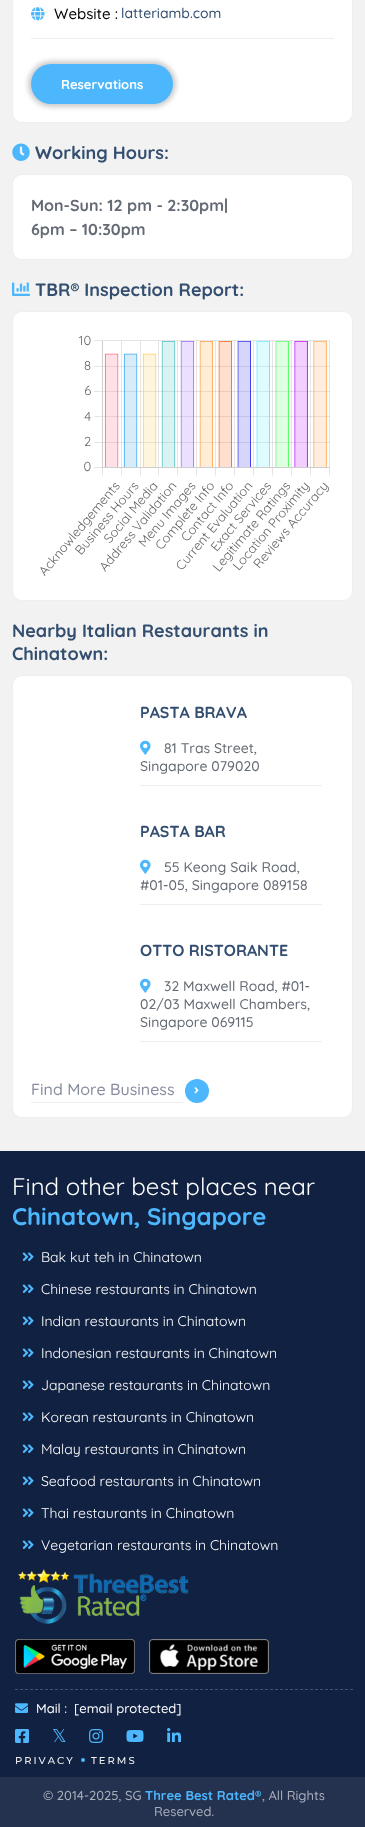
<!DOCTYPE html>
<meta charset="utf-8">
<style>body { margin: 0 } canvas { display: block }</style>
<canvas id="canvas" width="365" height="1827"></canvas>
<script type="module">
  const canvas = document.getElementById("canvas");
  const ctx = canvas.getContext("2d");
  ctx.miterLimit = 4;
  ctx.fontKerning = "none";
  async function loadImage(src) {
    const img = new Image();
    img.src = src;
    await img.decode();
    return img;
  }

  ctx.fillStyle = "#f2f2f2";
  ctx.fillRect(0, 0, 365, 1827);
  ctx.fillStyle = "#ffffff";
  ctx.beginPath();
  ctx.roundRect(12.5, -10.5, 340, 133, 9.5);
  ctx.fill();
  ctx.strokeStyle = "#eeeeee";
  ctx.stroke();
  ctx.fillStyle = "#eeeeee";
  ctx.fillRect(31, 38, 303, 1);
  ctx.drawImage(await loadImage("img1.png"), 31, 7, 14, 14);
  ctx.font = "500 15px Quicksand";
  ctx.fillStyle = "#000000";
  ctx.fillText("Website :", 54, 19);
  ctx.font = "500 14px Quicksand";
  ctx.fillStyle = "#334e6f";
  ctx.fillText("latteriamb.com", 121, 18);
  ctx.fillStyle = "#cbcbcb";
  ctx.filter = "blur(2.5px)";
  ctx.beginPath();
  ctx.roundRect(28, 61, 148, 46, 23);
  ctx.fill();
  ctx.filter = "none";
  ctx.fillStyle = "#4db7fe";
  ctx.beginPath();
  ctx.roundRect(31, 64, 142, 40, 20);
  ctx.fill();
  ctx.font = "bold 13px Quicksand";
  ctx.fillStyle = "#ffffff";
  ctx.fillText("Reservations", 61, 89);
  ctx.drawImage(await loadImage("img2.png"), 12, 143, 18, 18);
  ctx.font = "bold 18px Quicksand";
  ctx.fillStyle = "#334e6f";
  ctx.fillText("Working Hours:", 35, 159);
  ctx.fillStyle = "#ffffff";
  ctx.beginPath();
  ctx.roundRect(12.5, 174.5, 340, 85, 9.5);
  ctx.fill();
  ctx.stroke();
  ctx.font = "bold 16px Quicksand";
  ctx.fillStyle = "#646b74";
  ctx.fillText("Mon-Sun: 12 pm - 2:30pm|", 31, 211);
  ctx.fillText("6pm – 10:30pm", 31, 235);
  ctx.drawImage(await loadImage("img3.png"), 12, 282, 18, 14);
  ctx.font = "bold 18px Quicksand";
  ctx.fillStyle = "#334e6f";
  ctx.fillText("TBR® Inspection Report:", 35, 296);
  ctx.fillStyle = "#ffffff";
  ctx.beginPath();
  ctx.roundRect(12.5, 311.5, 340, 289, 9.5);
  ctx.fill();
  ctx.stroke();
  ctx.drawImage(await loadImage("img4.png"), 40, 335, 290, 241);
  ctx.fillStyle = "#334e6f";
  ctx.fillText("Nearby Italian Restaurants in", 12, 637);
  ctx.fillText("Chinatown:", 12, 660);
  ctx.fillStyle = "#ffffff";
  ctx.beginPath();
  ctx.roundRect(12.5, 675.5, 340, 442, 9.5);
  ctx.fill();
  ctx.stroke();
  ctx.fillStyle = "#eeeeee";
  ctx.fillRect(140, 785, 182, 1);
  ctx.font = "bold 16px Quicksand";
  ctx.fillStyle = "#334e6f";
  ctx.fillText("PASTA BRAVA", 140, 718);
  ctx.drawImage(await loadImage("img5.png"), 140, 740, 11, 15);
  ctx.font = "500 14px Quicksand";
  ctx.fillStyle = "#646b74";
  ctx.fillText("81 Tras Street,", 164, 753);
  ctx.fillText("Singapore 079020", 140, 771);
  ctx.fillStyle = "#eeeeee";
  ctx.fillRect(140, 904, 182, 1);
  ctx.font = "bold 16px Quicksand";
  ctx.fillStyle = "#334e6f";
  ctx.fillText("PASTA BAR", 140, 837);
  ctx.drawImage(await loadImage("img5.png"), 140, 859, 11, 15);
  ctx.font = "500 14px Quicksand";
  ctx.fillStyle = "#646b74";
  ctx.fillText("55 Keong Saik Road,", 164, 872);
  ctx.fillText("#01-05, Singapore 089158", 140, 890);
  ctx.fillStyle = "#eeeeee";
  ctx.fillRect(140, 1041, 182, 1);
  ctx.font = "bold 16px Quicksand";
  ctx.fillStyle = "#334e6f";
  ctx.fillText("OTTO RISTORANTE", 140, 956);
  ctx.drawImage(await loadImage("img5.png"), 140, 978, 11, 15);
  ctx.font = "500 14px Quicksand";
  ctx.fillStyle = "#646b74";
  ctx.fillText("32 Maxwell Road, #01-", 164, 991);
  ctx.fillText("02/03 Maxwell Chambers,", 140, 1009);
  ctx.fillText("Singapore 069115", 140, 1027);
  ctx.font = "500 16px Quicksand";
  ctx.fillStyle = "#878c9f";
  ctx.fillText("Find More Business", 31, 1095);
  ctx.fillStyle = "#4db7fe";
  ctx.beginPath();
  ctx.arc(197, 1091, 12, 0, Math.PI * 2);
  ctx.fill();
  ctx.drawImage(await loadImage("img6.png"), 194, 1087, 5, 7);
  ctx.fillStyle = "#eeeeee";
  ctx.fillRect(31, 1102, 152, 1);
  ctx.fillStyle = "#112142";
  ctx.fillRect(0, 1151, 365, 626);
  ctx.font = "24px Quicksand";
  ctx.fillStyle = "#ffffff";
  ctx.fillText("Find other best places near", 12, 1195);
  ctx.font = "bold 24px Quicksand";
  ctx.fillStyle = "#4db7fe";
  ctx.fillText("Chinatown, Singapore", 12, 1225);
  ctx.drawImage(await loadImage("img7.png"), 22, 1252, 12, 10);
  ctx.font = "14px Quicksand";
  ctx.fillStyle = "#ffffff";
  ctx.fillText("Bak kut teh in Chinatown", 41, 1262);
  ctx.drawImage(await loadImage("img7.png"), 22, 1284, 12, 10);
  ctx.fillText("Chinese restaurants in Chinatown", 41, 1294);
  ctx.drawImage(await loadImage("img7.png"), 22, 1316, 12, 10);
  ctx.fillText("Indian restaurants in Chinatown", 41, 1326);
  ctx.drawImage(await loadImage("img7.png"), 22, 1348, 12, 10);
  ctx.fillText("Indonesian restaurants in Chinatown", 41, 1358);
  ctx.drawImage(await loadImage("img7.png"), 22, 1380, 12, 10);
  ctx.fillText("Japanese restaurants in Chinatown", 41, 1390);
  ctx.drawImage(await loadImage("img7.png"), 22, 1412, 12, 10);
  ctx.fillText("Korean restaurants in Chinatown", 41, 1422);
  ctx.drawImage(await loadImage("img7.png"), 22, 1444, 12, 10);
  ctx.fillText("Malay restaurants in Chinatown", 41, 1454);
  ctx.drawImage(await loadImage("img7.png"), 22, 1476, 12, 10);
  ctx.fillText("Seafood restaurants in Chinatown", 41, 1486);
  ctx.drawImage(await loadImage("img7.png"), 22, 1508, 12, 10);
  ctx.fillText("Thai restaurants in Chinatown", 41, 1518);
  ctx.drawImage(await loadImage("img7.png"), 22, 1540, 12, 10);
  ctx.fillText("Vegetarian restaurants in Chinatown", 41, 1550);
  ctx.drawImage(await loadImage("img8.png"), 17, 1569, 172, 55);
  ctx.drawImage(await loadImage("img9.png"), 15, 1639, 120, 35);
  ctx.drawImage(await loadImage("img10.png"), 149, 1639, 120, 35);
  ctx.beginPath();
  ctx.moveTo(15, 1689.5);
  ctx.lineTo(353, 1689.5);
  ctx.strokeStyle = "#43506a";
  ctx.setLineDash([3, 2]);
  ctx.stroke();
  ctx.drawImage(await loadImage("img11.png"), 15, 1703, 13, 10);
  ctx.font = "500 13px Quicksand";
  ctx.fillText("Mail :", 36, 1713);
  ctx.fillText("[email protected]", 74, 1713);
  ctx.drawImage(await loadImage("img12.png"), 15, 1729, 14, 14);
  ctx.font = "18px DejaVu Sans";
  ctx.fillStyle = "#4db7fe";
  ctx.fillText("𝕏", 52, 1742);
  ctx.drawImage(await loadImage("img13.png"), 89, 1729, 15, 14);
  ctx.drawImage(await loadImage("img14.png"), 126, 1730, 18, 12);
  ctx.drawImage(await loadImage("img15.png"), 167, 1728, 14, 14);
  ctx.letterSpacing = "2px";
  ctx.font = "500 10px Montserrat";
  ctx.fillStyle = "#eeeeee";
  ctx.fillText("PRIVACY", 15, 1764);
  ctx.fillStyle = "#4db7fe";
  ctx.beginPath();
  ctx.arc(83, 1760, 2, 0, Math.PI * 2);
  ctx.fill();
  ctx.fillStyle = "#eeeeee";
  ctx.fillText("TERMS", 91, 1764);
  ctx.fillStyle = "#24324f";
  ctx.fillRect(0, 1777, 365, 50);
  ctx.letterSpacing = "0px";
  ctx.font = "500 13px Quicksand";
  ctx.fillStyle = "#aaafba";
  ctx.fillText("© 2014-2025, SG", 43, 1800);
  ctx.font = "bold 13px Quicksand";
  ctx.fillStyle = "#4db7fe";
  ctx.fillText("Three Best Rated®", 145, 1800);
  ctx.font = "500 13px Quicksand";
  ctx.fillStyle = "#aaafba";
  ctx.fillText(", All Rights", 262, 1800);
  ctx.fillText("Reserved.", 154, 1816);
</script>
